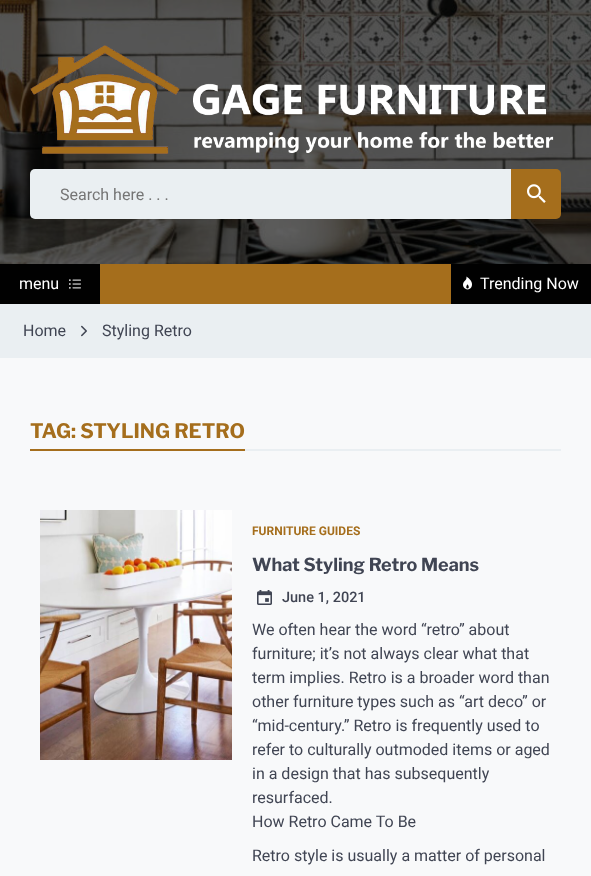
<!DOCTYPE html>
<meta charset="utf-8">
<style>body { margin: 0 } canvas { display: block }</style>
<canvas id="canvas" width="591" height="876"></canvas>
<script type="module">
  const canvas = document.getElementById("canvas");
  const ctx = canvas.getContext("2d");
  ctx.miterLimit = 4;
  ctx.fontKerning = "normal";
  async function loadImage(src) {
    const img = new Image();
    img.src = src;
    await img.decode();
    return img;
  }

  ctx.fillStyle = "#f8f9fa";
  ctx.fillRect(0, 0, 591, 876);
  ctx.drawImage(await loadImage("img1.png"), 0, 0, 591, 264);
  ctx.drawImage(await loadImage("img2.png"), 30, 45, 524, 109);
  ctx.fillStyle = "#eaeff2";
  ctx.beginPath();
  ctx.roundRect(30, 169, 481, 50, [5, 0, 0, 5]);
  ctx.fill();
  ctx.font = "16px Roboto";
  ctx.fillStyle = "#757575";
  ctx.fillText("Search here . . .", 60, 200);
  ctx.fillStyle = "#a56e1c";
  ctx.beginPath();
  ctx.roundRect(511, 169, 50, 50, [0, 5, 5, 0]);
  ctx.fill();
  ctx.drawImage(await loadImage("img3.png"), 527, 184, 19, 19);
  ctx.fillRect(100, 264, 351, 40);
  ctx.fillStyle = "#010101";
  ctx.fillRect(0, 264, 100, 40);
  ctx.fillStyle = "#ffffff";
  ctx.fillText("menu", 19, 289);
  ctx.drawImage(await loadImage("img4.png"), 69, 279, 12, 10);
  ctx.fillStyle = "#010101";
  ctx.fillRect(451, 264, 140, 40);
  ctx.drawImage(await loadImage("img5.png"), 463, 276, 9, 14);
  ctx.fillStyle = "#ffffff";
  ctx.fillText("Trending Now", 480, 289);
  ctx.fillStyle = "#eaeff2";
  ctx.fillRect(0, 304, 591, 54);
  ctx.fillStyle = "#404553";
  ctx.fillText("Home", 23, 336);
  ctx.drawImage(await loadImage("img6.png"), 81, 325, 6, 12);
  ctx.fillText("Styling Retro", 102, 336);
  ctx.font = "bold 20px Libre Franklin";
  ctx.fillStyle = "#a56e1c";
  ctx.fillText("TAG: STYLING RETRO", 30, 438);
  ctx.fillRect(30, 449, 215, 2);
  ctx.fillStyle = "#eaeff2";
  ctx.fillRect(245, 449, 316, 2);
  ctx.drawImage(await loadImage("img7.png"), 40, 510, 192, 250);
  ctx.font = "bold 12px Roboto";
  ctx.fillStyle = "#a56e1c";
  ctx.fillText("FURNITURE GUIDES", 252, 535);
  ctx.font = "bold 18px Libre Franklin";
  ctx.fillStyle = "#404553";
  ctx.fillText("What Styling Retro Means", 252, 571);
  ctx.drawImage(await loadImage("img8.png"), 257, 590, 15, 15);
  ctx.font = "500 14.5px Roboto";
  ctx.fillText("June 1, 2021", 282, 602);
  ctx.font = "16px Roboto";
  ctx.fillText("We often hear the word “retro” about", 252, 635);
  ctx.fillText("furniture; it’s not always clear what that", 252, 659);
  ctx.fillText("term implies. Retro is a broader word than", 252, 683);
  ctx.fillText("other furniture types such as “art deco” or", 252, 707);
  ctx.fillText("“mid-century.” Retro is frequently used to", 252, 731);
  ctx.fillText("refer to culturally outmoded items or aged", 252, 755);
  ctx.fillText("in a design that has subsequently", 252, 779);
  ctx.fillText("resurfaced.", 252, 803);
  ctx.fillText("How Retro Came To Be", 252, 827);
  ctx.fillText("Retro style is usually a matter of personal", 252, 861);
</script>
